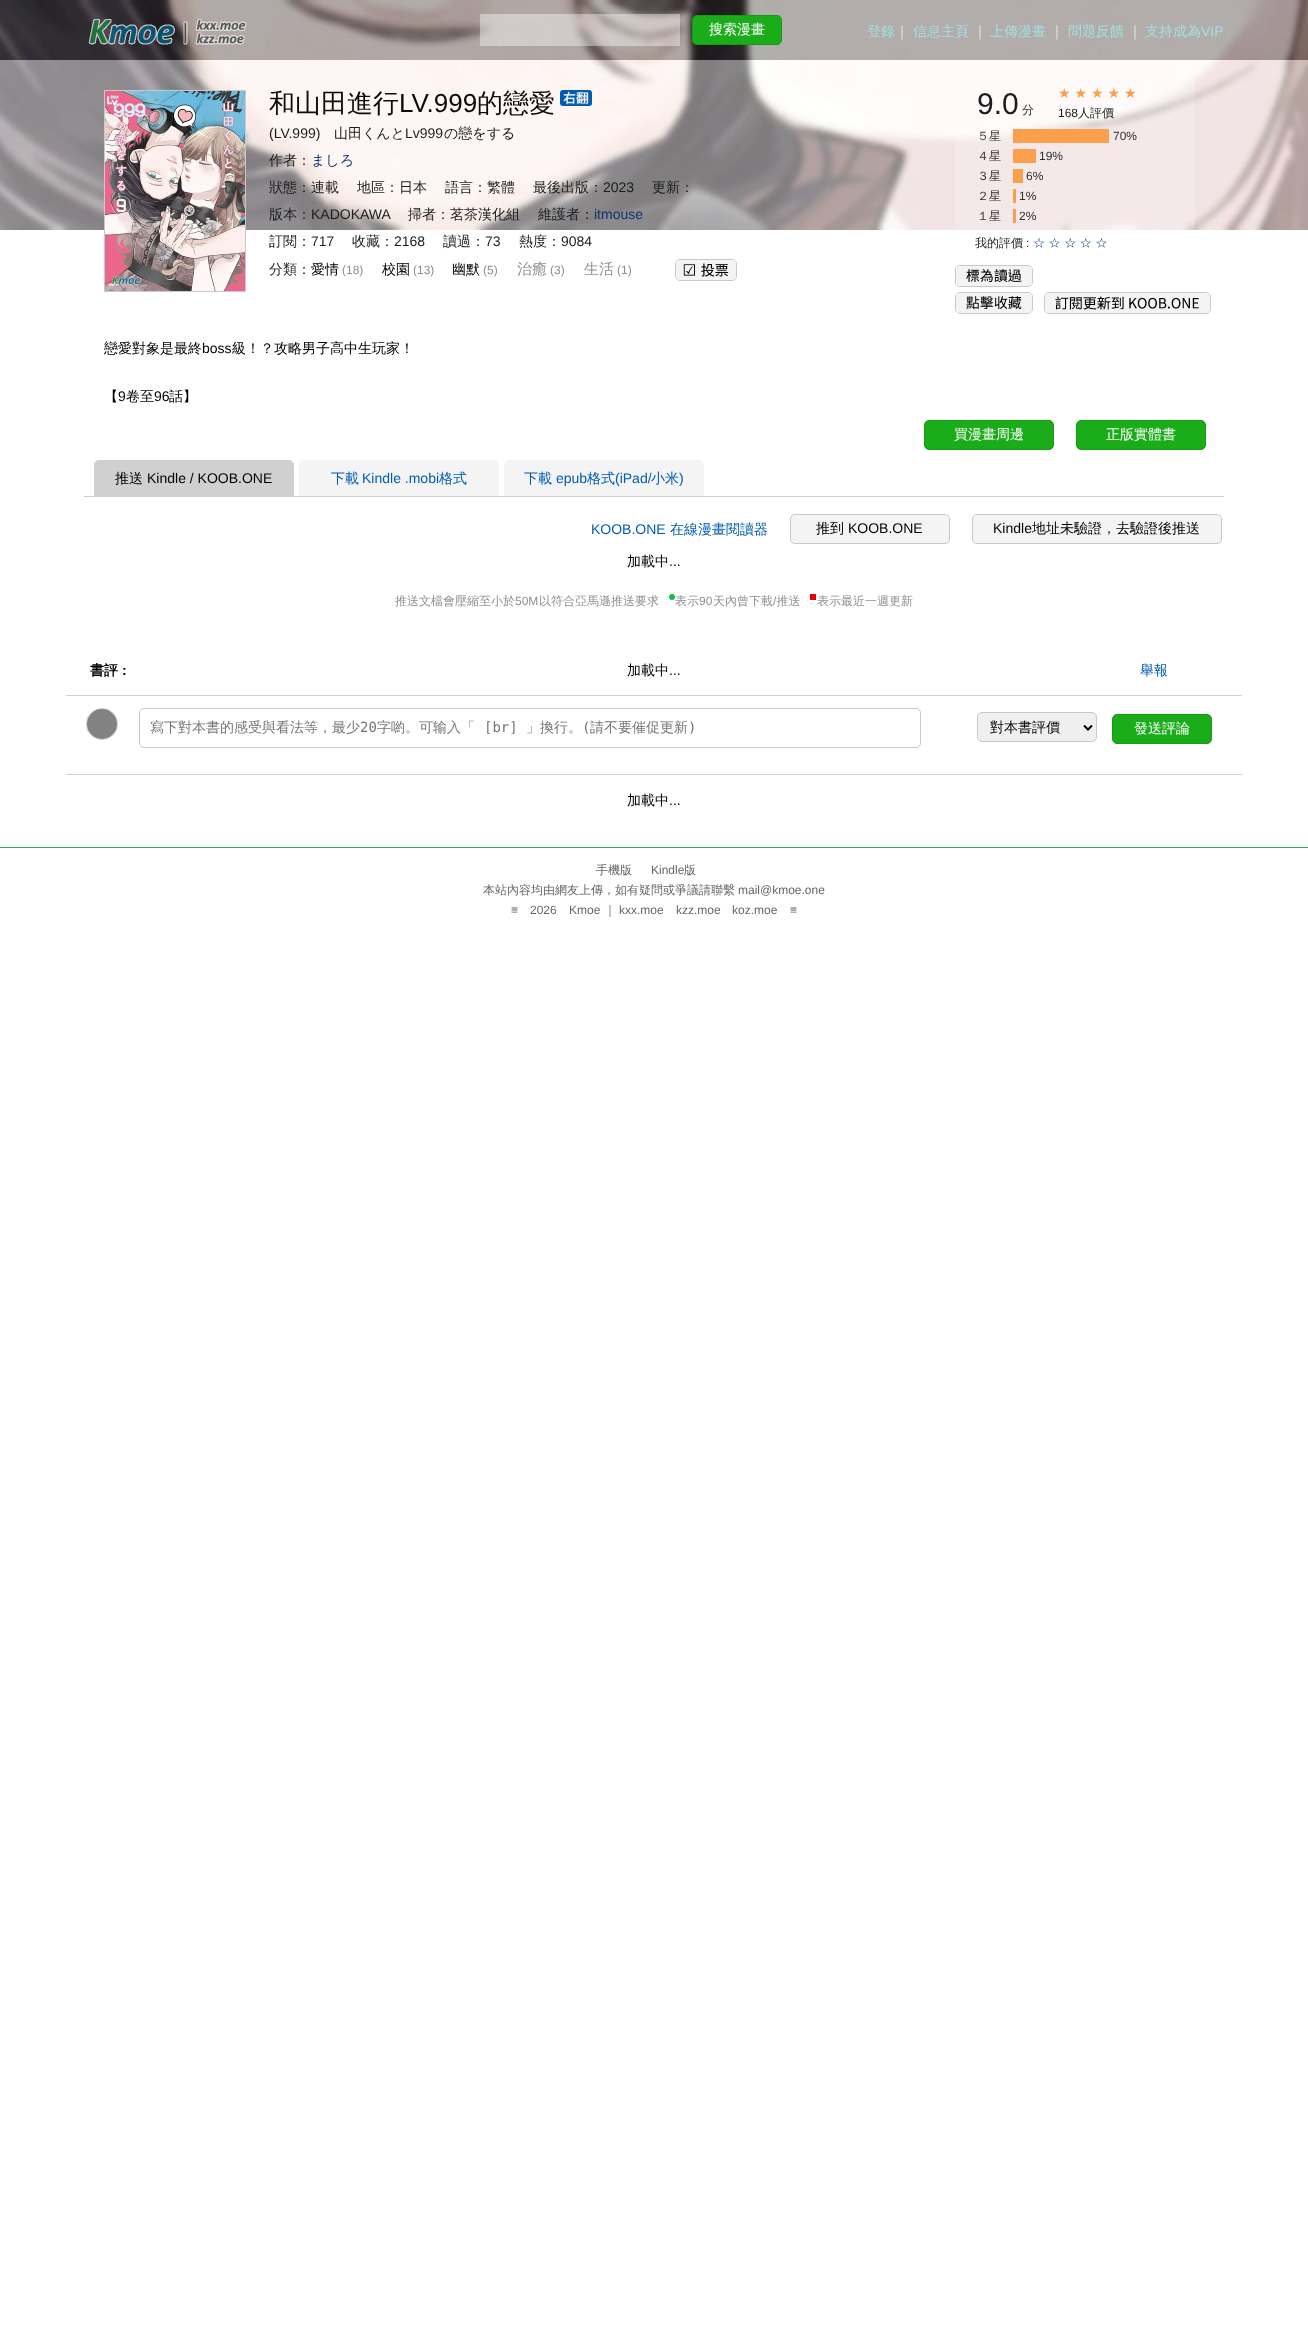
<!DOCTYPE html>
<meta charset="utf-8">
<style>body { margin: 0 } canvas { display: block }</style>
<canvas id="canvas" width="1308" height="2349"></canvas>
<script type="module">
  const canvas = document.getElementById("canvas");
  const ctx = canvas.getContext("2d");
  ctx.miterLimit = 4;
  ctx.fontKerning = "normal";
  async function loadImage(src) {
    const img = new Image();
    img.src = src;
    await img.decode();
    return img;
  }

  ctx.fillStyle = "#ffffff";
  ctx.fillRect(0, 0, 1308, 2349);
  ctx.drawImage(await loadImage("img1.png"), 0, 0, 1308, 230);
  ctx.fillStyle = "rgba(0, 0, 0, 0.3)";
  ctx.fillRect(0, 0, 1308, 60);
  ctx.drawImage(await loadImage("img2.png"), 88, 19, 159, 26);
  ctx.fillStyle = "rgba(255, 255, 255, 0.4)";
  ctx.fillRect(480, 14, 200, 32);
  ctx.fillStyle = "#1aad19";
  ctx.beginPath();
  ctx.roundRect(692.5, 15.5, 89, 29, 4.5);
  ctx.fill();
  ctx.strokeStyle = "#179b16";
  ctx.stroke();
  ctx.font = "500 14px WenQuanYi Zen Hei";
  ctx.fillStyle = "#ffffff";
  ctx.fillText("搜索漫畫", 709, 34);
  ctx.fillStyle = "#a5dee4";
  ctx.fillText("登錄", 867, 36);
  ctx.fillStyle = "#e9e9e9";
  ctx.fillText("｜", 895, 36);
  ctx.fillStyle = "#a5dee4";
  ctx.fillText("信息主頁", 913, 36);
  ctx.fillStyle = "#e9e9e9";
  ctx.fillText("｜", 973, 36);
  ctx.fillStyle = "#a5dee4";
  ctx.fillText("上傳漫畫", 990, 36);
  ctx.fillStyle = "#e9e9e9";
  ctx.fillText("｜", 1050, 36);
  ctx.fillStyle = "#a5dee4";
  ctx.fillText("問題反饋", 1068, 36);
  ctx.fillStyle = "#e9e9e9";
  ctx.fillText("｜", 1128, 36);
  ctx.fillStyle = "#a5dee4";
  ctx.fillText("支持成為", 1145, 36);
  ctx.font = "14px Liberation Sans";
  ctx.fillText("VIP", 1201, 36);
  ctx.fillStyle = "rgba(255, 255, 255, 0.4)";
  ctx.fillRect(0, 60, 1308, 170);
  ctx.strokeStyle = "#c8c8cd";
  ctx.strokeRect(104.5, 90.5, 141, 201);
  ctx.drawImage(await loadImage("img3.png"), 105, 91, 140, 200);
  ctx.font = "500 26px WenQuanYi Zen Hei";
  ctx.fillStyle = "#0c0c0c";
  ctx.fillText("和山田進行", 269, 112);
  ctx.font = "26px Liberation Sans";
  ctx.fillText("LV.999", 399, 112);
  ctx.font = "500 26px WenQuanYi Zen Hei";
  ctx.fillText("的戀愛", 477, 112);
  ctx.drawImage(await loadImage("img4.png"), 560, 90, 32, 16);
  ctx.font = "14px Liberation Sans";
  ctx.fillStyle = "#1c1c1c";
  ctx.fillText("(LV.999)", 269, 138);
  ctx.font = "500 14px WenQuanYi Zen Hei";
  ctx.fillText("山田くんと", 334, 138);
  ctx.font = "14px Liberation Sans";
  ctx.fillText("Lv999", 405, 138);
  ctx.font = "500 14px WenQuanYi Zen Hei";
  ctx.fillText("の戀をする", 444, 138);
  ctx.fillText("作者：", 269, 165);
  ctx.fillStyle = "#0b346e";
  ctx.fillText("ましろ", 311, 165);
  ctx.fillStyle = "#1c1c1c";
  ctx.fillText("狀態：連載", 269, 192);
  ctx.fillText("地區：日本", 357, 192);
  ctx.fillText("語言：繁體", 445, 192);
  ctx.fillText("最後出版：", 533, 192);
  ctx.font = "14px Liberation Sans";
  ctx.fillText("2023", 603, 192);
  ctx.font = "500 14px WenQuanYi Zen Hei";
  ctx.fillText("更新：", 652, 192);
  ctx.fillText("版本：", 269, 219);
  ctx.font = "14px Liberation Sans";
  ctx.fillText("KADOKAWA", 311, 219);
  ctx.font = "500 14px WenQuanYi Zen Hei";
  ctx.fillText("掃者：茗茶漢化組", 408, 219);
  ctx.fillText("維護者：", 538, 219);
  ctx.font = "14px Liberation Sans";
  ctx.fillStyle = "#0b346e";
  ctx.fillText("itmouse", 594, 219);
  ctx.font = "500 14px WenQuanYi Zen Hei";
  ctx.fillStyle = "#1c1c1c";
  ctx.fillText("訂閱：", 269, 246);
  ctx.font = "14px Liberation Sans";
  ctx.fillText("717", 311, 246);
  ctx.font = "500 14px WenQuanYi Zen Hei";
  ctx.fillText("收藏：", 352, 246);
  ctx.font = "14px Liberation Sans";
  ctx.fillText("2168", 394, 246);
  ctx.font = "500 14px WenQuanYi Zen Hei";
  ctx.fillText("讀過：", 443, 246);
  ctx.font = "14px Liberation Sans";
  ctx.fillText("73", 485, 246);
  ctx.font = "500 14px WenQuanYi Zen Hei";
  ctx.fillText("熱度：", 519, 246);
  ctx.font = "14px Liberation Sans";
  ctx.fillText("9084", 561, 246);
  ctx.beginPath();
  ctx.roundRect(675.5, 259.5, 61, 21, 4.5);
  ctx.stroke();
  ctx.font = "500 14px WenQuanYi Zen Hei";
  ctx.fillText("分類：", 269, 274);
  ctx.fillStyle = "#000000";
  ctx.fillText("愛情", 311, 274);
  ctx.font = "12px Liberation Sans";
  ctx.fillStyle = "#8f8f8f";
  ctx.fillText("(18)", 342, 274);
  ctx.font = "500 14px WenQuanYi Zen Hei";
  ctx.fillStyle = "#000000";
  ctx.fillText("校園", 382, 274);
  ctx.font = "12px Liberation Sans";
  ctx.fillStyle = "#8f8f8f";
  ctx.fillText("(13)", 413, 274);
  ctx.font = "500 14px WenQuanYi Zen Hei";
  ctx.fillStyle = "#000000";
  ctx.fillText("幽默", 452, 274);
  ctx.font = "12px Liberation Sans";
  ctx.fillStyle = "#8f8f8f";
  ctx.fillText("(5)", 483, 274);
  ctx.font = "500 15px WenQuanYi Zen Hei";
  ctx.fillText("治癒", 517, 274);
  ctx.font = "12px Liberation Sans";
  ctx.fillText("(3)", 550, 274);
  ctx.font = "500 15px WenQuanYi Zen Hei";
  ctx.fillText("生活", 584, 274);
  ctx.font = "12px Liberation Sans";
  ctx.fillText("(1)", 617, 274);
  ctx.drawImage(await loadImage("img5.png"), 676, 260, 60, 20);
  ctx.fillStyle = "rgba(255, 255, 255, 0.2)";
  ctx.beginPath();
  ctx.roundRect(955, 73, 240, 182, 10);
  ctx.fill();
  ctx.font = "30px Liberation Sans";
  ctx.fillStyle = "#1c1c1c";
  ctx.fillText("9.0", 977, 114);
  ctx.font = "500 12px WenQuanYi Zen Hei";
  ctx.fillStyle = "#303030";
  ctx.fillText("分", 1022, 114);
  ctx.wordSpacing = "-0.5px";
  ctx.font = "14px DejaVu Sans";
  ctx.fillStyle = "#fc9f4d";
  ctx.fillText("★ ★ ★ ★ ★", 1058, 98);
  ctx.wordSpacing = "0px";
  ctx.font = "12px Liberation Sans";
  ctx.fillStyle = "#1c1c1c";
  ctx.fillText("168", 1058, 117);
  ctx.font = "500 12px WenQuanYi Zen Hei";
  ctx.fillText("人評價", 1078, 117);
  ctx.fillStyle = "#303030";
  ctx.fillText("５星", 977, 140);
  ctx.font = "12px Liberation Sans";
  ctx.fillText("70%", 1113, 140);
  ctx.fillStyle = "#fc9f4d";
  ctx.fillRect(1013, 129, 96, 14);
  ctx.font = "500 12px WenQuanYi Zen Hei";
  ctx.fillStyle = "#303030";
  ctx.fillText("４星", 977, 160);
  ctx.font = "12px Liberation Sans";
  ctx.fillText("19%", 1039, 160);
  ctx.fillStyle = "#fc9f4d";
  ctx.fillRect(1013, 149, 23, 14);
  ctx.font = "500 12px WenQuanYi Zen Hei";
  ctx.fillStyle = "#303030";
  ctx.fillText("３星", 977, 180);
  ctx.font = "12px Liberation Sans";
  ctx.fillText("6%", 1026, 180);
  ctx.fillStyle = "#fc9f4d";
  ctx.fillRect(1013, 169, 10, 14);
  ctx.font = "500 12px WenQuanYi Zen Hei";
  ctx.fillStyle = "#303030";
  ctx.fillText("２星", 977, 200);
  ctx.font = "12px Liberation Sans";
  ctx.fillText("1%", 1019, 200);
  ctx.fillStyle = "#fc9f4d";
  ctx.fillRect(1013, 189, 3, 14);
  ctx.font = "500 12px WenQuanYi Zen Hei";
  ctx.fillStyle = "#303030";
  ctx.fillText("１星", 977, 220);
  ctx.font = "12px Liberation Sans";
  ctx.fillText("2%", 1019, 220);
  ctx.fillStyle = "#fc9f4d";
  ctx.fillRect(1013, 209, 3, 14);
  ctx.font = "500 12px WenQuanYi Zen Hei";
  ctx.fillStyle = "#1c1c1c";
  ctx.fillText("我的評價", 975, 247);
  ctx.font = "12px Liberation Sans";
  ctx.fillText(":", 1026, 247);
  ctx.font = "500 12px WenQuanYi Zen Hei";
  ctx.fillStyle = "#0b346e";
  ctx.fillText("☆ ☆ ☆ ☆ ☆", 1033, 247);
  ctx.beginPath();
  ctx.roundRect(955.5, 265.5, 77, 21, 4.5);
  ctx.stroke();
  ctx.drawImage(await loadImage("img6.png"), 956, 266, 76, 20);
  ctx.beginPath();
  ctx.roundRect(955.5, 292.5, 77, 21, 4.5);
  ctx.stroke();
  ctx.beginPath();
  ctx.roundRect(1044.5, 292.5, 166, 21, 4.5);
  ctx.stroke();
  ctx.drawImage(await loadImage("img7.png"), 956, 293, 76, 20);
  ctx.drawImage(await loadImage("img8.png"), 1045, 293, 165, 20);
  ctx.font = "500 14px WenQuanYi Zen Hei";
  ctx.fillStyle = "#000000";
  ctx.fillText("戀愛對象是最終", 104, 353);
  ctx.font = "14px Liberation Sans";
  ctx.fillText("boss", 202, 353);
  ctx.font = "500 14px WenQuanYi Zen Hei";
  ctx.fillText("級！？攻略男子高中生玩家！", 232, 353);
  ctx.fillText("【", 104, 401);
  ctx.font = "14px Liberation Sans";
  ctx.fillText("9", 118, 401);
  ctx.font = "500 14px WenQuanYi Zen Hei";
  ctx.fillText("卷至", 126, 401);
  ctx.font = "14px Liberation Sans";
  ctx.fillText("96", 154, 401);
  ctx.font = "500 14px WenQuanYi Zen Hei";
  ctx.fillText("話】", 169, 401);
  ctx.fillStyle = "#1aad19";
  ctx.beginPath();
  ctx.roundRect(924.5, 420.5, 129, 29, 4.5);
  ctx.fill();
  ctx.strokeStyle = "#179b16";
  ctx.stroke();
  ctx.fillStyle = "#ffffff";
  ctx.fillText("買漫畫周邊", 954, 439);
  ctx.fillStyle = "#1aad19";
  ctx.beginPath();
  ctx.roundRect(1076.5, 420.5, 129, 29, 4.5);
  ctx.fill();
  ctx.stroke();
  ctx.fillStyle = "#ffffff";
  ctx.fillText("正版實體書", 1106, 439);
  ctx.fillStyle = "#d0d0d0";
  ctx.beginPath();
  ctx.roundRect(94, 460, 200, 36, [5, 5, 0, 0]);
  ctx.fill();
  ctx.fillStyle = "#000000";
  ctx.fillText("推送", 115, 483);
  ctx.font = "14px Liberation Sans";
  ctx.fillText("Kindle / KOOB.ONE", 147, 483);
  ctx.fillStyle = "#f4f4f4";
  ctx.beginPath();
  ctx.roundRect(299, 460, 200, 36, [5, 5, 0, 0]);
  ctx.fill();
  ctx.font = "500 14px WenQuanYi Zen Hei";
  ctx.fillStyle = "#005caf";
  ctx.fillText("下載", 331, 483);
  ctx.font = "14px Liberation Sans";
  ctx.fillText("Kindle .mobi", 362, 483);
  ctx.font = "500 14px WenQuanYi Zen Hei";
  ctx.fillText("格式", 439, 483);
  ctx.fillStyle = "#f4f4f4";
  ctx.beginPath();
  ctx.roundRect(504, 460, 200, 36, [5, 5, 0, 0]);
  ctx.fill();
  ctx.fillStyle = "#005caf";
  ctx.fillText("下載", 524, 483);
  ctx.font = "14px Liberation Sans";
  ctx.fillText("epub", 556, 483);
  ctx.font = "500 14px WenQuanYi Zen Hei";
  ctx.fillText("格式", 587, 483);
  ctx.font = "14px Liberation Sans";
  ctx.fillText("(iPad/", 615, 483);
  ctx.font = "500 14px WenQuanYi Zen Hei";
  ctx.fillText("小米", 651, 483);
  ctx.font = "14px Liberation Sans";
  ctx.fillText(")", 679, 483);
  ctx.fillStyle = "#d0d0d0";
  ctx.fillRect(84, 496, 1140, 1);
  ctx.fillStyle = "#005caf";
  ctx.fillText("KOOB.ONE", 591, 534);
  ctx.font = "500 14px WenQuanYi Zen Hei";
  ctx.fillText("在線漫畫閱讀器", 670, 534);
  ctx.fillStyle = "#f4f4f4";
  ctx.beginPath();
  ctx.roundRect(790.5, 514.5, 159, 29, 4.5);
  ctx.fill();
  ctx.strokeStyle = "#c8c8cd";
  ctx.stroke();
  ctx.fillStyle = "#000000";
  ctx.fillText("推到", 816, 533);
  ctx.font = "14px Liberation Sans";
  ctx.fillText("KOOB.ONE", 848, 533);
  ctx.fillStyle = "#f4f4f4";
  ctx.beginPath();
  ctx.roundRect(972.5, 514.5, 249, 29, 4.5);
  ctx.fill();
  ctx.stroke();
  ctx.fillStyle = "#000000";
  ctx.fillText("Kindle", 993, 533);
  ctx.font = "500 14px WenQuanYi Zen Hei";
  ctx.fillText("地址未驗證，去驗證後推送", 1032, 533);
  ctx.fillText("加載中", 627, 566);
  ctx.font = "14px Liberation Sans";
  ctx.fillText("...", 669, 566);
  ctx.font = "500 12px WenQuanYi Zen Hei";
  ctx.fillStyle = "#8f8f8f";
  ctx.fillText("推送文檔會壓縮至小於", 395, 605);
  ctx.font = "12px Liberation Sans";
  ctx.fillText("50M", 515, 605);
  ctx.font = "500 12px WenQuanYi Zen Hei";
  ctx.fillText("以符合亞馬遜推送要求", 539, 605);
  ctx.drawImage(await loadImage("img9.png"), 669, 594, 6, 6);
  ctx.fillText("表示", 675, 605);
  ctx.font = "12px Liberation Sans";
  ctx.fillText("90", 699, 605);
  ctx.font = "500 12px WenQuanYi Zen Hei";
  ctx.fillText("天內曾下載 推送", 713, 605);
  ctx.fillStyle = "#e30000";
  ctx.fillRect(810, 594, 6, 6);
  ctx.fillStyle = "#8f8f8f";
  ctx.fillText("表示最近一週更新", 817, 605);
  ctx.font = "12px Liberation Sans";
  ctx.fillText("/", 773, 605);
  ctx.font = "bold 14px WenQuanYi Zen Hei";
  ctx.fillStyle = "#000000";
  ctx.fillText("書評", 90, 675);
  ctx.font = "bold 14px Liberation Sans";
  ctx.fillText(":", 122, 675);
  ctx.font = "500 14px WenQuanYi Zen Hei";
  ctx.fillText("加載中", 627, 675);
  ctx.font = "14px Liberation Sans";
  ctx.fillText("...", 669, 675);
  ctx.font = "500 14px WenQuanYi Zen Hei";
  ctx.fillStyle = "#005caf";
  ctx.fillText("舉報", 1140, 675);
  ctx.fillStyle = "#d0d0d0";
  ctx.fillRect(66, 695, 1176, 1);
  ctx.beginPath();
  ctx.arc(102, 724, 15.5, 0, Math.PI * 2);
  ctx.stroke();
  ctx.drawImage(await loadImage("img10.png"), 87, 709, 30, 30);
  ctx.beginPath();
  ctx.roundRect(139.5, 708.5, 781, 39, 4.5);
  ctx.stroke();
  ctx.fillStyle = "#757575";
  ctx.fillText("寫下對本書的感受與看法等，最少", 150, 732);
  ctx.font = "14px DejaVu Sans Mono";
  ctx.fillText("20", 360, 732);
  ctx.font = "500 14px WenQuanYi Zen Hei";
  ctx.fillText("字喲。可输入「", 377, 732);
  ctx.font = "14px DejaVu Sans Mono";
  ctx.fillText("[br]", 484, 732);
  ctx.font = "500 14px WenQuanYi Zen Hei";
  ctx.fillText("」換行。", 526, 732);
  ctx.font = "14px DejaVu Sans Mono";
  ctx.fillText("(", 582, 732);
  ctx.font = "500 14px WenQuanYi Zen Hei";
  ctx.fillText("請不要催促更新", 590, 732);
  ctx.font = "14px DejaVu Sans Mono";
  ctx.fillText(")", 688, 732);
  ctx.fillStyle = "#efefef";
  ctx.beginPath();
  ctx.roundRect(977.5, 712.5, 119, 29, 4.5);
  ctx.fill();
  ctx.stroke();
  ctx.beginPath();
  ctx.moveTo(1084, 725.5);
  ctx.lineTo(1088, 729.5);
  ctx.lineTo(1092, 725.5);
  ctx.strokeStyle = "#000000";
  ctx.lineWidth = 2;
  ctx.stroke();
  ctx.font = "500 14px WenQuanYi Zen Hei";
  ctx.fillStyle = "#000000";
  ctx.fillText("對本書評價", 990, 732);
  ctx.fillStyle = "#1aad19";
  ctx.beginPath();
  ctx.roundRect(1112.5, 714.5, 99, 29, 4.5);
  ctx.fill();
  ctx.strokeStyle = "#179b16";
  ctx.lineWidth = 1;
  ctx.stroke();
  ctx.fillStyle = "#ffffff";
  ctx.fillText("發送評論", 1134, 733);
  ctx.fillStyle = "#d0d0d0";
  ctx.fillRect(66, 774, 1176, 1);
  ctx.fillStyle = "#000000";
  ctx.fillText("加載中", 627, 805);
  ctx.font = "14px Liberation Sans";
  ctx.fillText("...", 669, 805);
  ctx.fillStyle = "#22b14c";
  ctx.fillRect(0, 847, 1308, 1);
  ctx.font = "500 12px WenQuanYi Zen Hei";
  ctx.fillStyle = "#666666";
  ctx.fillText("手機版", 596, 874);
  ctx.font = "12px Liberation Sans";
  ctx.fillText("Kindle", 651, 874);
  ctx.font = "500 12px WenQuanYi Zen Hei";
  ctx.fillText("版", 684, 874);
  ctx.fillText("本站內容均由網友上傳，如有疑問或爭議請聯繫", 483, 894);
  ctx.font = "12px Liberation Sans";
  ctx.fillText("mail@kmoe.one", 738, 894);
  ctx.fillText("≡", 511, 914);
  ctx.fillText("2026", 530, 914);
  ctx.fillText("Kmoe", 569, 914);
  ctx.font = "500 12px WenQuanYi Zen Hei";
  ctx.fillText("｜", 604, 914);
  ctx.font = "12px Liberation Sans";
  ctx.fillText("kxx.moe", 619, 914);
  ctx.fillText("kzz.moe", 676, 914);
  ctx.fillText("koz.moe", 732, 914);
  ctx.fillText("≡", 790, 914);
</script>
